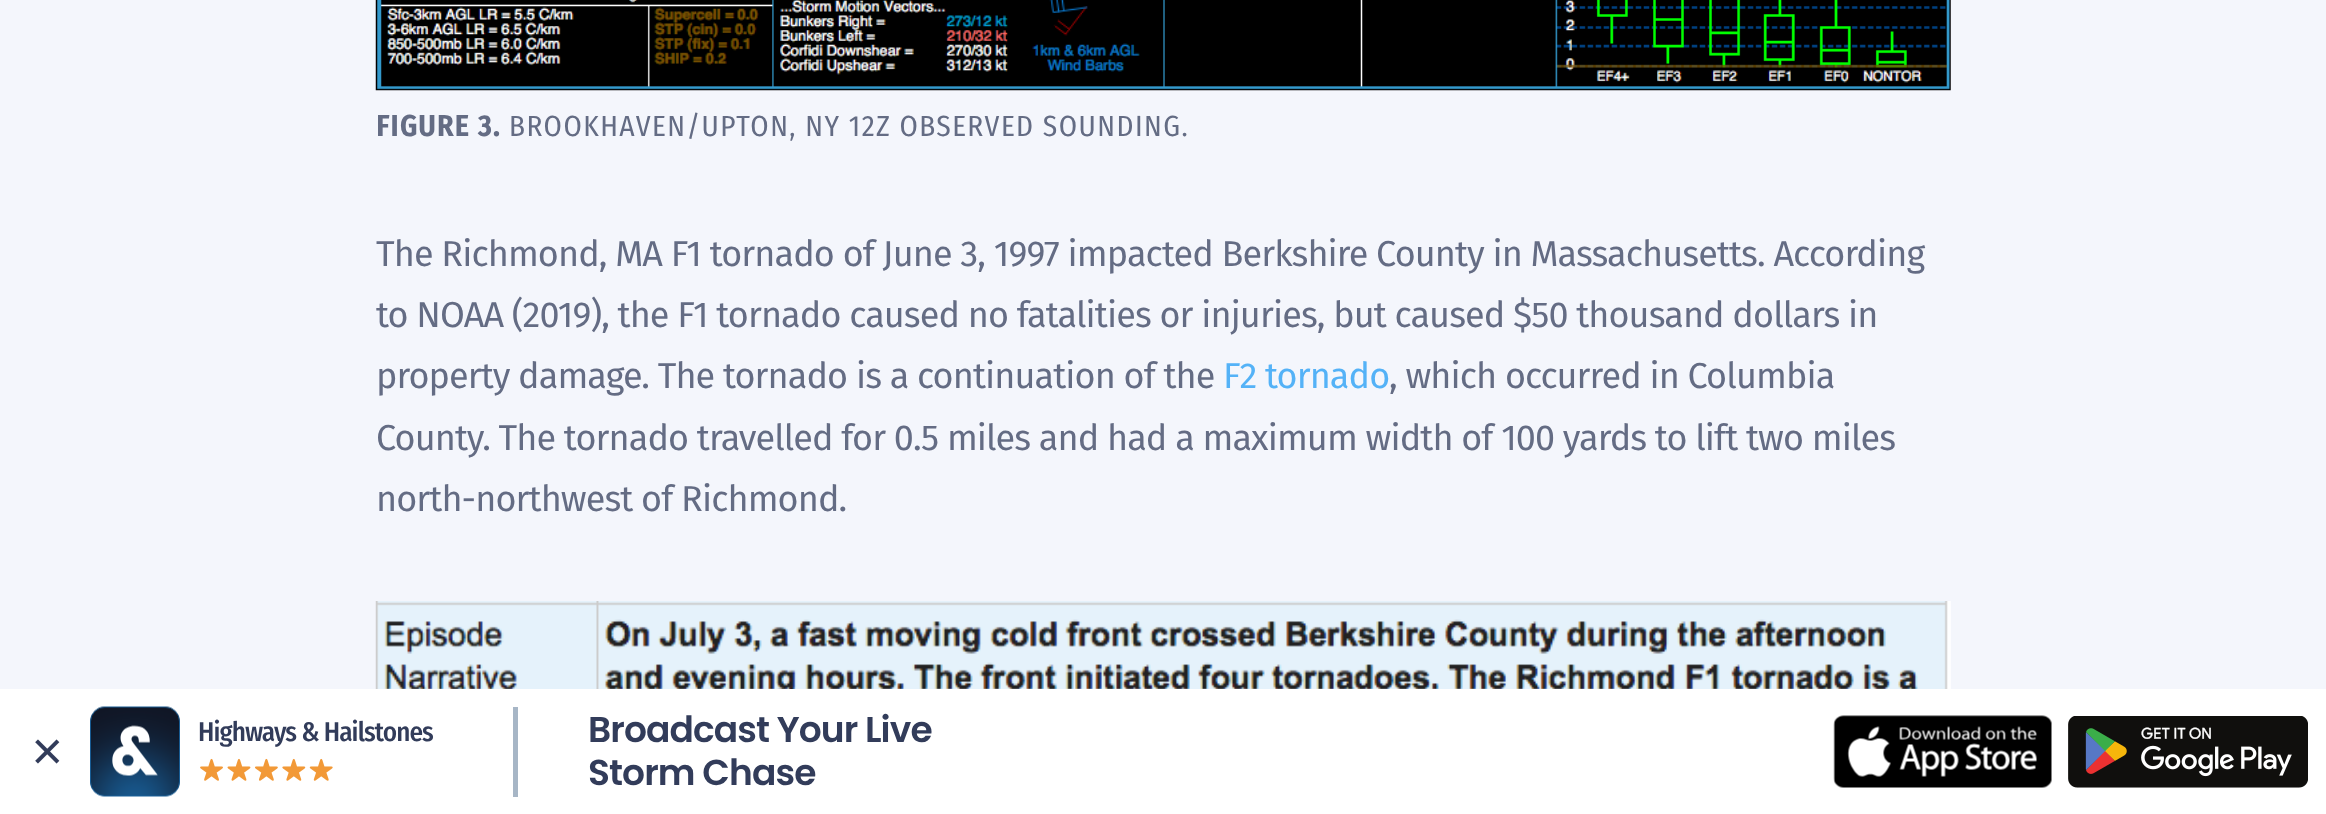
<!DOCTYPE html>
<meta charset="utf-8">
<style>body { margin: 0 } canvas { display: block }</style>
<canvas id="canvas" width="2326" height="814"></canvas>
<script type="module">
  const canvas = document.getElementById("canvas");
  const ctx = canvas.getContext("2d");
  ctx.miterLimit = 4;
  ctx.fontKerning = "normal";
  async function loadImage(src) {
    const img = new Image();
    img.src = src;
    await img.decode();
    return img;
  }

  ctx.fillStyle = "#f4f6fc";
  ctx.fillRect(0, 0, 2326, 814);
  ctx.drawImage(await loadImage("img1.png"), 375, 0, 1576, 91);
  ctx.letterSpacing = "1.45px";
  ctx.font = "bold 29.25px Fira Sans Condensed";
  ctx.fillStyle = "#646c84";
  ctx.fillText("FIGURE 3.", 376, 136);
  ctx.font = "29.25px Fira Sans Condensed";
  ctx.fillText("BROOKHAVEN/UPTON, NY 12Z OBSERVED SOUNDING.", 509, 136);
  ctx.letterSpacing = "-0.9px";
  ctx.font = "36px Fira Sans";
  ctx.fillText("The Richmond, MA F1 tornado of June 3, 1997 impacted Berkshire County in Massachusetts. According", 376, 266);
  ctx.fillText("to NOAA (2019), the F1 tornado caused no fatalities or injuries, but caused $50 thousand dollars in", 376, 327);
  ctx.fillText("property damage. The tornado is a continuation of the", 376, 388);
  ctx.fillStyle = "#54b2f7";
  ctx.fillText("F2 tornado", 1223, 388);
  ctx.fillStyle = "#646c84";
  ctx.fillText(", which occurred in Columbia", 1389, 388);
  ctx.fillText("County. The tornado travelled for 0.5 miles and had a maximum width of 100 yards to lift two miles", 376, 450);
  ctx.fillText("north-northwest of Richmond.", 376, 511);
  ctx.drawImage(await loadImage("img2.png"), 375, 601, 1576, 88);
  ctx.fillStyle = "#ffffff";
  ctx.fillRect(0, 689, 2326, 125);
  ctx.drawImage(await loadImage("img3.png"), 90, 706, 90, 91);
  ctx.font = "500 27px Fira Sans Condensed";
  ctx.fillStyle = "#323c5a";
  ctx.fillText("Highways & Hailstones", 198, 741);
  ctx.drawImage(await loadImage("img4.png"), 200, 758, 133, 23);
  ctx.fillStyle = "#a7b6c6";
  ctx.fillRect(513, 707, 5, 90);
  ctx.font = "600 36px Poppins";
  ctx.fillStyle = "#323c5a";
  ctx.fillText("Broadcast Your Live", 588, 742);
  ctx.fillText("Storm Chase", 588, 785);
  ctx.drawImage(await loadImage("img5.png"), 1833, 715, 219, 73);
  ctx.drawImage(await loadImage("img6.png"), 2068, 716, 240, 72);
  ctx.drawImage(await loadImage("img7.png"), 35, 739, 25, 25);
</script>
